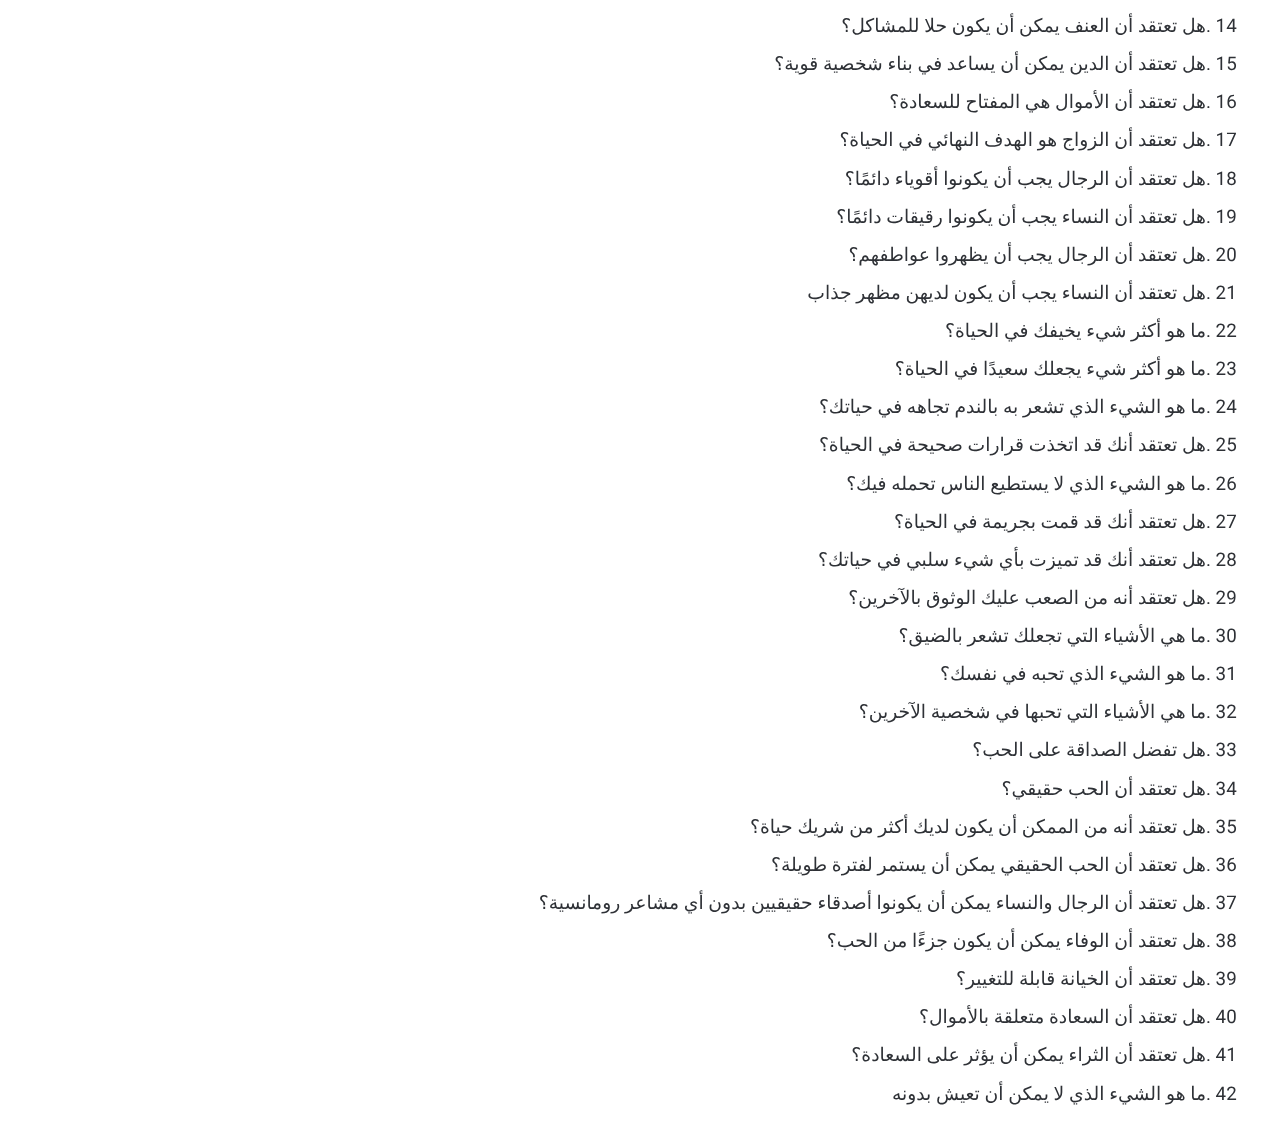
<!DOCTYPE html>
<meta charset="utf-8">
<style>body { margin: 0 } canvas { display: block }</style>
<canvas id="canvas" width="1268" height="1132"></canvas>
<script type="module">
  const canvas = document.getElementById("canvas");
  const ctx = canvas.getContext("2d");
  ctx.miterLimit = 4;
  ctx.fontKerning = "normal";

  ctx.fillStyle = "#ffffff";
  ctx.fillRect(0, 0, 1268, 1132);
  ctx.font = "18.75px Roboto";
  ctx.fillStyle = "#2e3136";
  ctx.fillText(". 14", 1206, 32);
  ctx.wordSpacing = "-1.25px";
  ctx.direction = "rtl";
  ctx.font = "18.75px DejaVu Sans";
  ctx.fillText("هل تعتقد أن العنف يمكن أن يكون حلا للمشاكل؟", 1206, 32);
  ctx.wordSpacing = "0px";
  ctx.direction = "ltr";
  ctx.font = "18.75px Roboto";
  ctx.fillText(". 15", 1206, 70);
  ctx.wordSpacing = "-1.25px";
  ctx.direction = "rtl";
  ctx.font = "18.75px DejaVu Sans";
  ctx.fillText("هل تعتقد أن الدين يمكن أن يساعد في بناء شخصية قوية؟", 1206, 70);
  ctx.wordSpacing = "0px";
  ctx.direction = "ltr";
  ctx.font = "18.75px Roboto";
  ctx.fillText(". 16", 1206, 108);
  ctx.wordSpacing = "-1.25px";
  ctx.direction = "rtl";
  ctx.font = "18.75px DejaVu Sans";
  ctx.fillText("هل تعتقد أن الأموال هي المفتاح للسعادة؟", 1206, 108);
  ctx.wordSpacing = "0px";
  ctx.direction = "ltr";
  ctx.font = "18.75px Roboto";
  ctx.fillText(". 17", 1206, 146);
  ctx.wordSpacing = "-1.25px";
  ctx.direction = "rtl";
  ctx.font = "18.75px DejaVu Sans";
  ctx.fillText("هل تعتقد أن الزواج هو الهدف النهائي في الحياة؟", 1206, 146);
  ctx.wordSpacing = "0px";
  ctx.direction = "ltr";
  ctx.font = "18.75px Roboto";
  ctx.fillText(". 18", 1206, 185);
  ctx.wordSpacing = "-1.25px";
  ctx.direction = "rtl";
  ctx.font = "18.75px DejaVu Sans";
  ctx.fillText("هل تعتقد أن الرجال يجب أن يكونوا أقوياء دائمًا؟", 1206, 185);
  ctx.wordSpacing = "0px";
  ctx.direction = "ltr";
  ctx.font = "18.75px Roboto";
  ctx.fillText(". 19", 1206, 223);
  ctx.wordSpacing = "-1.25px";
  ctx.direction = "rtl";
  ctx.font = "18.75px DejaVu Sans";
  ctx.fillText("هل تعتقد أن النساء يجب أن يكونوا رقيقات دائمًا؟", 1206, 223);
  ctx.wordSpacing = "0px";
  ctx.direction = "ltr";
  ctx.font = "18.75px Roboto";
  ctx.fillText(". 20", 1206, 261);
  ctx.wordSpacing = "-1.25px";
  ctx.direction = "rtl";
  ctx.font = "18.75px DejaVu Sans";
  ctx.fillText("هل تعتقد أن الرجال يجب أن يظهروا عواطفهم؟", 1206, 261);
  ctx.wordSpacing = "0px";
  ctx.direction = "ltr";
  ctx.font = "18.75px Roboto";
  ctx.fillText(". 21", 1206, 299);
  ctx.wordSpacing = "-1.25px";
  ctx.direction = "rtl";
  ctx.font = "18.75px DejaVu Sans";
  ctx.fillText("هل تعتقد أن النساء يجب أن يكون لديهن مظهر جذاب", 1206, 299);
  ctx.wordSpacing = "0px";
  ctx.direction = "ltr";
  ctx.font = "18.75px Roboto";
  ctx.fillText(". 22", 1206, 337);
  ctx.wordSpacing = "-1.25px";
  ctx.direction = "rtl";
  ctx.font = "18.75px DejaVu Sans";
  ctx.fillText("ما هو أكثر شيء يخيفك في الحياة؟", 1206, 337);
  ctx.wordSpacing = "0px";
  ctx.direction = "ltr";
  ctx.font = "18.75px Roboto";
  ctx.fillText(". 23", 1206, 375);
  ctx.wordSpacing = "-1.25px";
  ctx.direction = "rtl";
  ctx.font = "18.75px DejaVu Sans";
  ctx.fillText("ما هو أكثر شيء يجعلك سعيدًا في الحياة؟", 1206, 375);
  ctx.wordSpacing = "0px";
  ctx.direction = "ltr";
  ctx.font = "18.75px Roboto";
  ctx.fillText(". 24", 1206, 413);
  ctx.wordSpacing = "-1.25px";
  ctx.direction = "rtl";
  ctx.font = "18.75px DejaVu Sans";
  ctx.fillText("ما هو الشيء الذي تشعر به بالندم تجاهه في حياتك؟", 1206, 413);
  ctx.wordSpacing = "0px";
  ctx.direction = "ltr";
  ctx.font = "18.75px Roboto";
  ctx.fillText(". 25", 1206, 451);
  ctx.wordSpacing = "-1.25px";
  ctx.direction = "rtl";
  ctx.font = "18.75px DejaVu Sans";
  ctx.fillText("هل تعتقد أنك قد اتخذت قرارات صحيحة في الحياة؟", 1206, 451);
  ctx.wordSpacing = "0px";
  ctx.direction = "ltr";
  ctx.font = "18.75px Roboto";
  ctx.fillText(". 26", 1206, 490);
  ctx.wordSpacing = "-1.25px";
  ctx.direction = "rtl";
  ctx.font = "18.75px DejaVu Sans";
  ctx.fillText("ما هو الشيء الذي لا يستطيع الناس تحمله فيك؟", 1206, 490);
  ctx.wordSpacing = "0px";
  ctx.direction = "ltr";
  ctx.font = "18.75px Roboto";
  ctx.fillText(". 27", 1206, 528);
  ctx.wordSpacing = "-1.25px";
  ctx.direction = "rtl";
  ctx.font = "18.75px DejaVu Sans";
  ctx.fillText("هل تعتقد أنك قد قمت بجريمة في الحياة؟", 1206, 528);
  ctx.wordSpacing = "0px";
  ctx.direction = "ltr";
  ctx.font = "18.75px Roboto";
  ctx.fillText(". 28", 1206, 566);
  ctx.wordSpacing = "-1.25px";
  ctx.direction = "rtl";
  ctx.font = "18.75px DejaVu Sans";
  ctx.fillText("هل تعتقد أنك قد تميزت بأي شيء سلبي في حياتك؟", 1206, 566);
  ctx.wordSpacing = "0px";
  ctx.direction = "ltr";
  ctx.font = "18.75px Roboto";
  ctx.fillText(". 29", 1206, 604);
  ctx.wordSpacing = "-1.25px";
  ctx.direction = "rtl";
  ctx.font = "18.75px DejaVu Sans";
  ctx.fillText("هل تعتقد أنه من الصعب عليك الوثوق بالآخرين؟", 1206, 604);
  ctx.wordSpacing = "0px";
  ctx.direction = "ltr";
  ctx.font = "18.75px Roboto";
  ctx.fillText(". 30", 1206, 642);
  ctx.wordSpacing = "-1.25px";
  ctx.direction = "rtl";
  ctx.font = "18.75px DejaVu Sans";
  ctx.fillText("ما هي الأشياء التي تجعلك تشعر بالضيق؟", 1206, 642);
  ctx.wordSpacing = "0px";
  ctx.direction = "ltr";
  ctx.font = "18.75px Roboto";
  ctx.fillText(". 31", 1206, 680);
  ctx.wordSpacing = "-1.25px";
  ctx.direction = "rtl";
  ctx.font = "18.75px DejaVu Sans";
  ctx.fillText("ما هو الشيء الذي تحبه في نفسك؟", 1206, 680);
  ctx.wordSpacing = "0px";
  ctx.direction = "ltr";
  ctx.font = "18.75px Roboto";
  ctx.fillText(". 32", 1206, 718);
  ctx.wordSpacing = "-1.25px";
  ctx.direction = "rtl";
  ctx.font = "18.75px DejaVu Sans";
  ctx.fillText("ما هي الأشياء التي تحبها في شخصية الآخرين؟", 1206, 718);
  ctx.wordSpacing = "0px";
  ctx.direction = "ltr";
  ctx.font = "18.75px Roboto";
  ctx.fillText(". 33", 1206, 756);
  ctx.wordSpacing = "-1.25px";
  ctx.direction = "rtl";
  ctx.font = "18.75px DejaVu Sans";
  ctx.fillText("هل تفضل الصداقة على الحب؟", 1206, 756);
  ctx.wordSpacing = "0px";
  ctx.direction = "ltr";
  ctx.font = "18.75px Roboto";
  ctx.fillText(". 34", 1206, 795);
  ctx.wordSpacing = "-1.25px";
  ctx.direction = "rtl";
  ctx.font = "18.75px DejaVu Sans";
  ctx.fillText("هل تعتقد أن الحب حقيقي؟", 1206, 795);
  ctx.wordSpacing = "0px";
  ctx.direction = "ltr";
  ctx.font = "18.75px Roboto";
  ctx.fillText(". 35", 1206, 833);
  ctx.wordSpacing = "-1.25px";
  ctx.direction = "rtl";
  ctx.font = "18.75px DejaVu Sans";
  ctx.fillText("هل تعتقد أنه من الممكن أن يكون لديك أكثر من شريك حياة؟", 1206, 833);
  ctx.wordSpacing = "0px";
  ctx.direction = "ltr";
  ctx.font = "18.75px Roboto";
  ctx.fillText(". 36", 1206, 871);
  ctx.wordSpacing = "-1.25px";
  ctx.direction = "rtl";
  ctx.font = "18.75px DejaVu Sans";
  ctx.fillText("هل تعتقد أن الحب الحقيقي يمكن أن يستمر لفترة طويلة؟", 1206, 871);
  ctx.wordSpacing = "0px";
  ctx.direction = "ltr";
  ctx.font = "18.75px Roboto";
  ctx.fillText(". 37", 1206, 909);
  ctx.wordSpacing = "-1.25px";
  ctx.direction = "rtl";
  ctx.font = "18.75px DejaVu Sans";
  ctx.fillText("هل تعتقد أن الرجال والنساء يمكن أن يكونوا أصدقاء حقيقيين بدون أي مشاعر رومانسية؟", 1206, 909);
  ctx.wordSpacing = "0px";
  ctx.direction = "ltr";
  ctx.font = "18.75px Roboto";
  ctx.fillText(". 38", 1206, 947);
  ctx.wordSpacing = "-1.25px";
  ctx.direction = "rtl";
  ctx.font = "18.75px DejaVu Sans";
  ctx.fillText("هل تعتقد أن الوفاء يمكن أن يكون جزءًا من الحب؟", 1206, 947);
  ctx.wordSpacing = "0px";
  ctx.direction = "ltr";
  ctx.font = "18.75px Roboto";
  ctx.fillText(". 39", 1206, 985);
  ctx.wordSpacing = "-1.25px";
  ctx.direction = "rtl";
  ctx.font = "18.75px DejaVu Sans";
  ctx.fillText("هل تعتقد أن الخيانة قابلة للتغيير؟", 1206, 985);
  ctx.wordSpacing = "0px";
  ctx.direction = "ltr";
  ctx.font = "18.75px Roboto";
  ctx.fillText(". 40", 1206, 1023);
  ctx.wordSpacing = "-1.25px";
  ctx.direction = "rtl";
  ctx.font = "18.75px DejaVu Sans";
  ctx.fillText("هل تعتقد أن السعادة متعلقة بالأموال؟", 1206, 1023);
  ctx.wordSpacing = "0px";
  ctx.direction = "ltr";
  ctx.font = "18.75px Roboto";
  ctx.fillText(". 41", 1206, 1061);
  ctx.wordSpacing = "-1.25px";
  ctx.direction = "rtl";
  ctx.font = "18.75px DejaVu Sans";
  ctx.fillText("هل تعتقد أن الثراء يمكن أن يؤثر على السعادة؟", 1206, 1061);
  ctx.wordSpacing = "0px";
  ctx.direction = "ltr";
  ctx.font = "18.75px Roboto";
  ctx.fillText(". 42", 1206, 1100);
  ctx.wordSpacing = "-1.25px";
  ctx.direction = "rtl";
  ctx.font = "18.75px DejaVu Sans";
  ctx.fillText("ما هو الشيء الذي لا يمكن أن تعيش بدونه", 1206, 1100);
</script>
